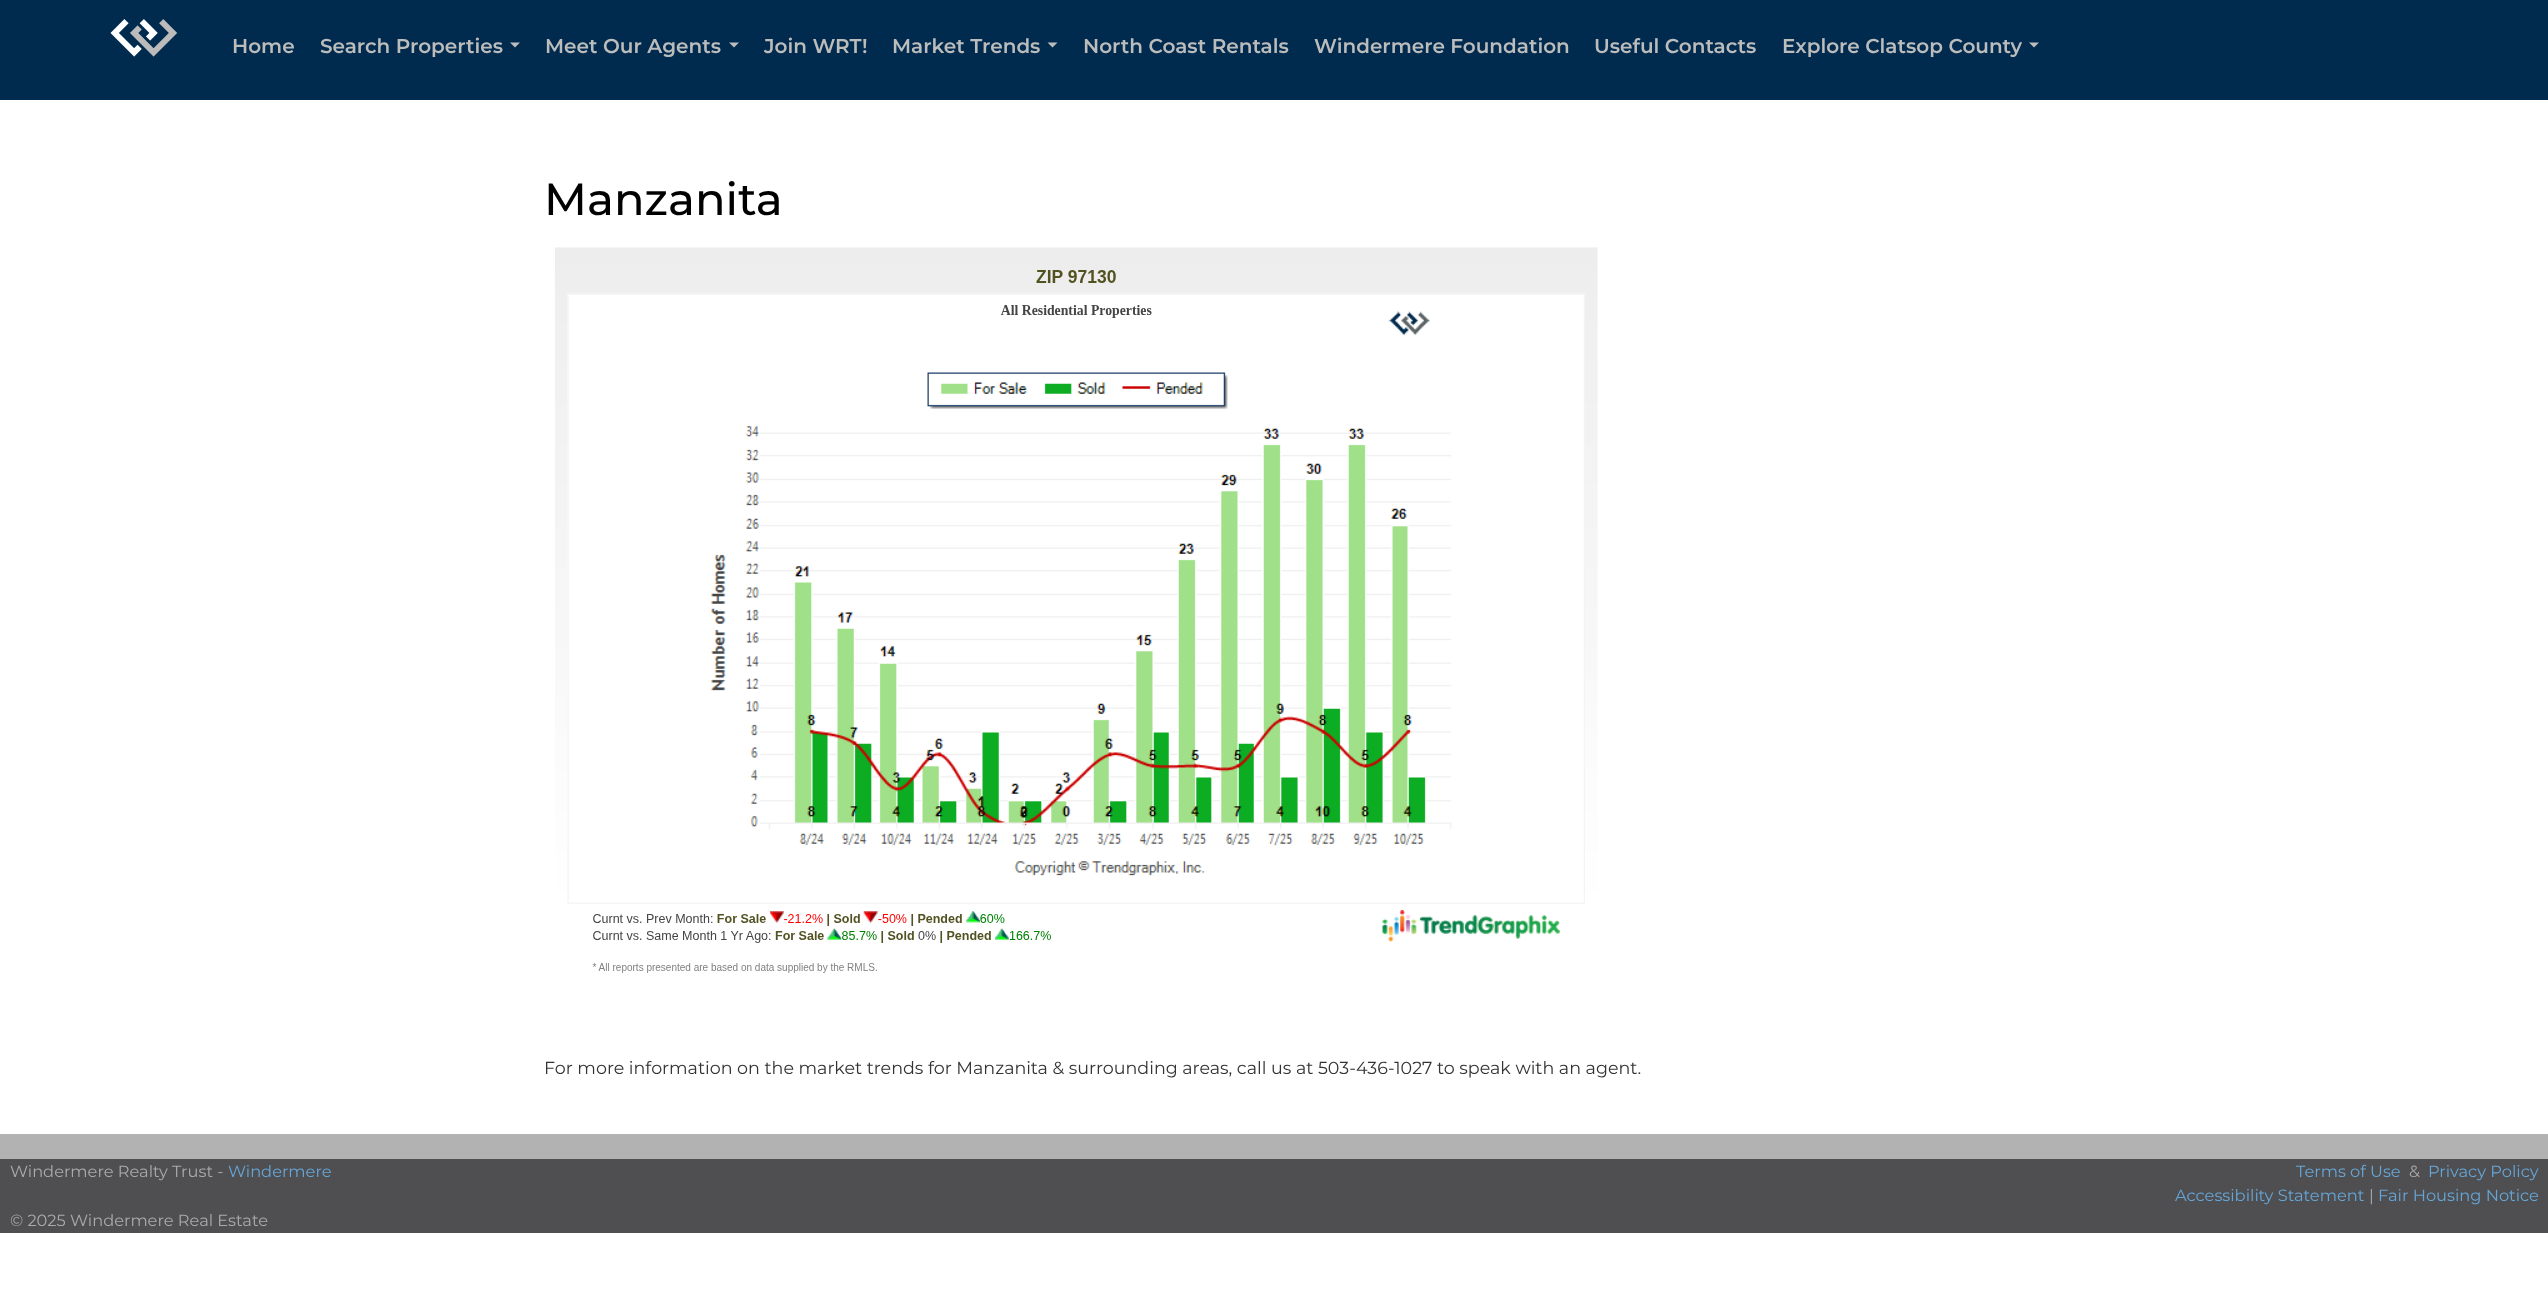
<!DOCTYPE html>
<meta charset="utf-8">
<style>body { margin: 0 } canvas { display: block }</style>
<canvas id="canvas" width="2548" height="1309"></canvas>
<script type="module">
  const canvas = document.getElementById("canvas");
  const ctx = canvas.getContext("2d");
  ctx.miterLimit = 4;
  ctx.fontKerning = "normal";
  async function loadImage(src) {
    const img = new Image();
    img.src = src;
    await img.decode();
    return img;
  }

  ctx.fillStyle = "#ffffff";
  ctx.fillRect(0, 0, 2548, 1309);
  ctx.fillStyle = "#002a4e";
  ctx.fillRect(0, 0, 2548, 100);
  ctx.drawImage(await loadImage("img1.png"), 110, 19, 68, 38);
  ctx.font = "600 20px Montserrat";
  ctx.fillStyle = "#bbbcbc";
  ctx.fillText("Home", 232, 53);
  ctx.fillText("Search Properties", 320, 53);
  ctx.beginPath();
  ctx.moveTo(510, 42.5);
  ctx.lineTo(520, 42.5);
  ctx.lineTo(515, 47.5);
  ctx.closePath();
  ctx.fill();
  ctx.fillText("Meet Our Agents", 545, 53);
  ctx.beginPath();
  ctx.moveTo(729, 42.5);
  ctx.lineTo(739, 42.5);
  ctx.lineTo(734, 47.5);
  ctx.closePath();
  ctx.fill();
  ctx.fillText("Join WRT!", 764, 53);
  ctx.fillText("Market Trends", 892, 53);
  ctx.beginPath();
  ctx.moveTo(1047.5, 42.5);
  ctx.lineTo(1057.5, 42.5);
  ctx.lineTo(1052.5, 47.5);
  ctx.closePath();
  ctx.fill();
  ctx.fillText("North Coast Rentals", 1083, 53);
  ctx.fillText("Windermere Foundation", 1314, 53);
  ctx.fillText("Useful Contacts", 1594, 53);
  ctx.fillText("Explore Clatsop County", 1782, 53);
  ctx.beginPath();
  ctx.moveTo(2029, 42.5);
  ctx.lineTo(2039, 42.5);
  ctx.lineTo(2034, 47.5);
  ctx.closePath();
  ctx.fill();
  ctx.font = "500 45px Montserrat";
  ctx.fillStyle = "#000000";
  ctx.fillText("Manzanita", 544, 215);
  ctx.drawImage(await loadImage("img2.png"), 555, 247, 1043, 726);
  ctx.font = "17.5px Montserrat";
  ctx.fillStyle = "#333333";
  ctx.fillText("For more information on the market trends for Manzanita & surrounding areas, call us at 503-436-1027 to speak with an agent.", 544, 1074);
  ctx.fillStyle = "#b3b2b3";
  ctx.fillRect(0, 1134, 2548, 25);
  ctx.fillStyle = "#4f4f51";
  ctx.fillRect(0, 1159, 2548, 74);
  ctx.font = "16.25px Montserrat";
  ctx.fillStyle = "#aaaaaa";
  ctx.fillText("Windermere Realty Trust -", 10, 1177);
  ctx.fillStyle = "#65a6d8";
  ctx.fillText("Windermere", 228, 1177);
  ctx.fillText("Terms of Use", 2296, 1177);
  ctx.fillStyle = "#aaaaaa";
  ctx.fillText("&", 2409, 1177);
  ctx.fillStyle = "#65a6d8";
  ctx.fillText("Privacy Policy", 2428, 1177);
  ctx.fillText("Accessibility Statement", 2175, 1201);
  ctx.fillStyle = "#aaaaaa";
  ctx.fillText("|", 2369, 1201);
  ctx.fillStyle = "#65a6d8";
  ctx.fillText("Fair Housing Notice", 2378, 1201);
  ctx.fillStyle = "#aaaaaa";
  ctx.fillText("© 2025 Windermere Real Estate", 10, 1226);
</script>
